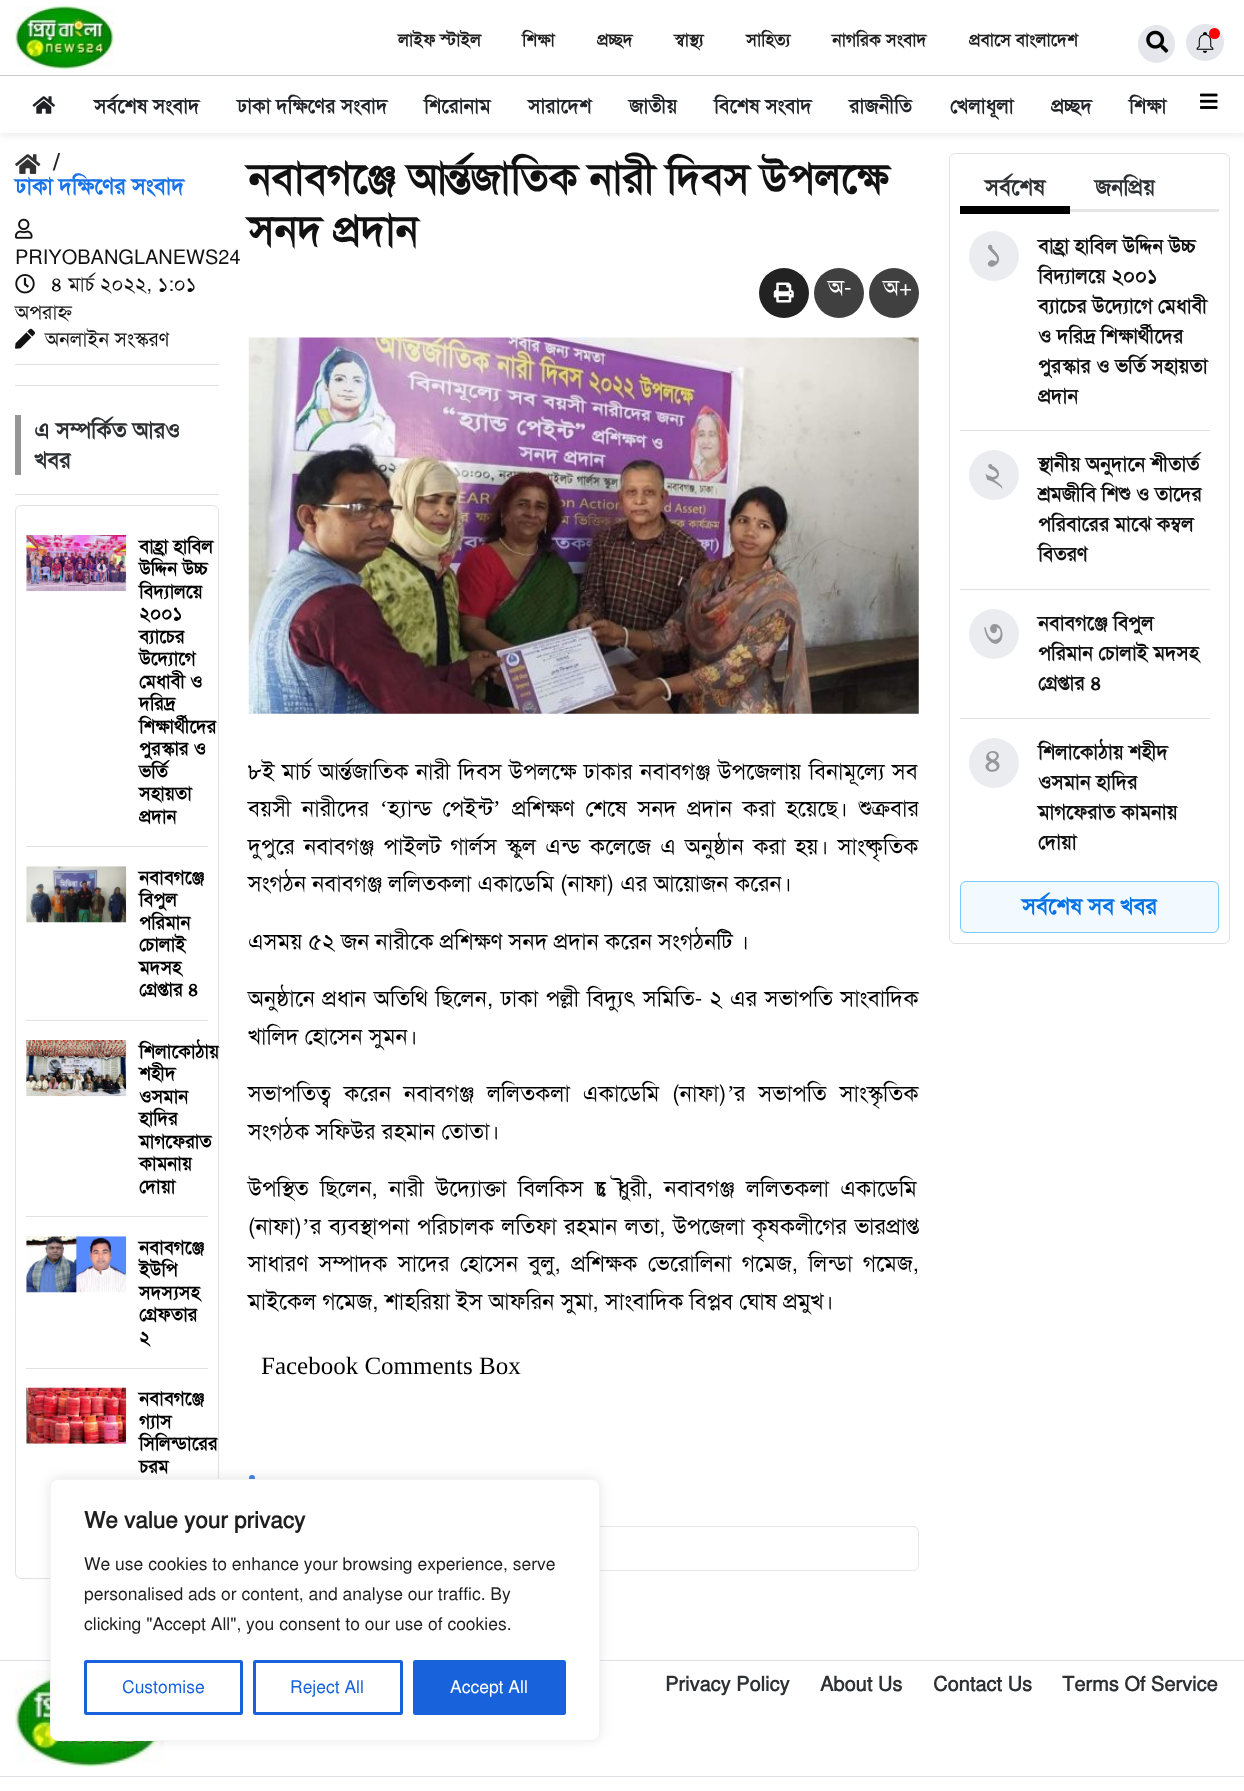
<!DOCTYPE html>
<meta charset="utf-8">
<style>body { margin: 0 } canvas { display: block }</style>
<canvas id="canvas" width="1244" height="1791"></canvas>
<script type="module">
  const canvas = document.getElementById("canvas");
  const ctx = canvas.getContext("2d");
  ctx.miterLimit = 4;
  ctx.fontKerning = "normal";
  async function loadImage(src) {
    const img = new Image();
    img.src = src;
    await img.decode();
    return img;
  }

  ctx.fillStyle = "#ffffff";
  ctx.fillRect(0, 0, 1244, 1791);
  ctx.save();
  ctx.beginPath();
  ctx.moveTo(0, 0);
  ctx.lineTo(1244, 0);
  ctx.lineTo(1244, 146);
  ctx.lineTo(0, 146);
  ctx.closePath();
  ctx.moveTo(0, 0);
  ctx.lineTo(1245, 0);
  ctx.lineTo(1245, 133);
  ctx.lineTo(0, 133);
  ctx.closePath();
  ctx.clip("evenodd");
  ctx.fillStyle = "#eeeeee";
  ctx.filter = "blur(3px)";
  ctx.beginPath();
  ctx.rect(0, 4, 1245, 132);
  ctx.fill();
  ctx.filter = "none";
  ctx.restore();
  ctx.drawImage(await loadImage("img1.png"), 15, 6, 99, 63);
  ctx.font = "bold 17.5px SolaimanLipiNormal";
  ctx.fillStyle = "#1f1f1f";
  ctx.fillText("লাইফ স্টাইল", 398, 46);
  ctx.fillText("শিক্ষা", 522, 46);
  ctx.fillText("প্রচ্ছদ", 597, 46);
  ctx.fillText("স্বাস্থ‌্য", 674, 46);
  ctx.fillText("সাহিত‌্য", 746, 46);
  ctx.fillText("নাগরিক সংবাদ", 832, 46);
  ctx.fillText("প্রবাসে বাংলাদেশ", 969, 46);
  ctx.fillStyle = "#e5e6eb";
  ctx.beginPath();
  ctx.roundRect(1138, 25, 37, 38, 18.5);
  ctx.fill();
  ctx.drawImage(await loadImage("img2.png"), 1146, 30, 23, 23);
  ctx.beginPath();
  ctx.roundRect(1186, 24, 38, 37, 18.5);
  ctx.fill();
  ctx.drawImage(await loadImage("img3.png"), 1196, 32, 18, 21);
  ctx.fillStyle = "#ff0000";
  ctx.beginPath();
  ctx.arc(1214.5, 33.5, 5.5, 0, Math.PI * 2);
  ctx.fill();
  ctx.fillStyle = "#cccccc";
  ctx.fillRect(0, 75, 1244, 1);
  ctx.drawImage(await loadImage("img4.png"), 32, 96, 23, 18);
  ctx.font = "bold 20px SolaimanLipiNormal";
  ctx.fillStyle = "#212529";
  ctx.fillText("সর্বশেষ সংবাদ", 94, 113);
  ctx.fillText("ঢাকা দক্ষিণের সংবাদ", 237, 113);
  ctx.fillText("শিরোনাম", 424, 113);
  ctx.fillText("সারাদেশ", 528, 113);
  ctx.fillText("জাতীয়", 629, 113);
  ctx.fillText("বিশেষ সংবাদ", 714, 113);
  ctx.fillText("রাজনীতি", 849, 113);
  ctx.fillText("খেলাধূলা", 950, 113);
  ctx.fillText("প্রচ্ছদ", 1051, 113);
  ctx.fillText("শিক্ষা", 1129, 113);
  ctx.drawImage(await loadImage("img5.png"), 1200, 93, 18, 16);
  ctx.drawImage(await loadImage("img6.png"), 15, 154, 26, 20);
  ctx.font = "bold 22.5px SolaimanLipiNormal";
  ctx.fillText("/", 53, 170);
  ctx.fillStyle = "#1a73e8";
  ctx.fillText("ঢাকা দক্ষিণের সংবাদ", 15, 194);
  ctx.fillStyle = "#dee2e6";
  ctx.fillRect(15, 364, 204, 1);
  ctx.drawImage(await loadImage("img7.png"), 15, 218, 18, 21);
  ctx.font = "20px SolaimanLipiNormal";
  ctx.fillStyle = "#121212";
  ctx.fillText("PRIYOBANGLANEWS24", 15, 264);
  ctx.drawImage(await loadImage("img8.png"), 15, 274, 20, 20);
  ctx.fillText("৪ মার্চ ২০২২, ১:০১", 51, 291);
  ctx.fillText("অপরাহ্ন", 15, 319);
  ctx.drawImage(await loadImage("img9.png"), 15, 328, 20, 21);
  ctx.fillText("অনলাইন সংস্করণ", 45, 346);
  ctx.fillStyle = "#dee2e6";
  ctx.fillRect(15, 385, 204, 1);
  ctx.fillStyle = "#959595";
  ctx.fillRect(15, 415, 6, 60);
  ctx.font = "bold 22.5px SolaimanLipiNormal";
  ctx.fillStyle = "#2d3134";
  ctx.fillText("এ সম্পর্কিত আরও", 34, 438);
  ctx.fillText("খবর", 34, 468);
  ctx.fillStyle = "#dee2e6";
  ctx.fillRect(15, 494, 204, 1);
  ctx.beginPath();
  ctx.roundRect(15.5, 505.5, 203, 1073, 5.5);
  ctx.strokeStyle = "#e2e2e2";
  ctx.stroke();
  ctx.drawImage(await loadImage("img10.png"), 26, 535, 101, 57);
  ctx.font = "bold 18.75px SolaimanLipiNormal";
  ctx.fillStyle = "#000000";
  ctx.fillText("বাহ্রা হাবিল", 139, 553);
  ctx.fillText("উদ্দিন উচ্চ", 139, 575);
  ctx.fillText("বিদ্যালয়ে", 139, 598);
  ctx.fillText("২০০১", 139, 620);
  ctx.fillText("ব্যাচের", 139, 643);
  ctx.fillText("উদ্যোগে", 139, 665);
  ctx.fillText("মেধাবী ও", 139, 688);
  ctx.fillText("দরিদ্র", 139, 710);
  ctx.fillText("শিক্ষার্থীদের", 139, 733);
  ctx.fillText("পুরস্কার ও", 139, 755);
  ctx.fillText("ভর্তি", 139, 778);
  ctx.fillText("সহায়তা", 139, 800);
  ctx.fillText("প্রদান", 139, 823);
  ctx.fillStyle = "#e2e2e2";
  ctx.fillRect(26, 846, 182, 1);
  ctx.drawImage(await loadImage("img11.png"), 26, 866, 101, 57);
  ctx.fillStyle = "#000000";
  ctx.fillText("নবাবগঞ্জে", 139, 884);
  ctx.fillText("বিপুল", 139, 906);
  ctx.fillText("পরিমান", 139, 929);
  ctx.fillText("চোলাই", 139, 951);
  ctx.fillText("মদসহ", 139, 974);
  ctx.fillText("গ্রেপ্তার ৪", 139, 996);
  ctx.fillStyle = "#e2e2e2";
  ctx.fillRect(26, 1020, 182, 1);
  ctx.drawImage(await loadImage("img12.png"), 26, 1040, 101, 57);
  ctx.fillStyle = "#000000";
  ctx.fillText("শিলাকোঠায়", 139, 1058);
  ctx.fillText("শহীদ", 139, 1080);
  ctx.fillText("ওসমান", 139, 1103);
  ctx.fillText("হাদির", 139, 1125);
  ctx.fillText("মাগফেরাত", 139, 1148);
  ctx.fillText("কামনায়", 139, 1170);
  ctx.fillText("দোয়া", 139, 1193);
  ctx.fillStyle = "#e2e2e2";
  ctx.fillRect(26, 1216, 182, 1);
  ctx.drawImage(await loadImage("img13.png"), 26, 1236, 101, 57);
  ctx.fillStyle = "#000000";
  ctx.fillText("নবাবগঞ্জে", 139, 1254);
  ctx.fillText("ইউপি", 139, 1276);
  ctx.fillText("সদস্যসহ", 139, 1299);
  ctx.fillText("গ্রেফতার", 139, 1321);
  ctx.fillText("২", 139, 1344);
  ctx.fillStyle = "#e2e2e2";
  ctx.fillRect(26, 1368, 182, 1);
  ctx.drawImage(await loadImage("img14.png"), 26, 1387, 101, 57);
  ctx.fillStyle = "#000000";
  ctx.fillText("নবাবগঞ্জে", 139, 1405);
  ctx.fillText("গ্যাস", 139, 1428);
  ctx.fillText("সিলিন্ডারের", 139, 1450);
  ctx.fillText("চরম", 139, 1473);
  ctx.font = "bold 42.5px SolaimanLipiNormal";
  ctx.fillStyle = "#121212";
  ctx.fillText("নবাবগঞ্জে আর্ন্তজাতিক নারী দিবস উপলক্ষে", 248, 193);
  ctx.fillText("সনদ প্রদান", 248, 245);
  ctx.fillStyle = "#222222";
  ctx.beginPath();
  ctx.arc(784, 293, 25, 0, Math.PI * 2);
  ctx.fill();
  ctx.drawImage(await loadImage("img15.png"), 773, 282, 21, 21);
  ctx.fillStyle = "#404040";
  ctx.beginPath();
  ctx.arc(839, 293, 25, 0, Math.PI * 2);
  ctx.fill();
  ctx.font = "22.5px SolaimanLipiNormal";
  ctx.fillStyle = "#ffffff";
  ctx.fillText("অ-", 828, 295);
  ctx.fillStyle = "#404040";
  ctx.beginPath();
  ctx.arc(894, 293, 25, 0, Math.PI * 2);
  ctx.fill();
  ctx.fillStyle = "#ffffff";
  ctx.fillText("অ+", 883, 295);
  ctx.drawImage(await loadImage("img16.png"), 248, 337, 671, 377);
  ctx.wordSpacing = "1.1px";
  ctx.fillStyle = "#000000";
  ctx.fillText("৮ই মার্চ আর্ন্তজাতিক নারী দিবস উপলক্ষে ঢাকার নবাবগঞ্জ উপজেলায় বিনামূল্যে সব", 248, 779);
  ctx.wordSpacing = "4.5px";
  ctx.fillText("বয়সী নারীদের", 248, 816);
  ctx.wordSpacing = "0px";
  ctx.font = "22.5px Liberation Serif";
  ctx.fillText("‘", 380, 816);
  ctx.wordSpacing = "4.5px";
  ctx.font = "22.5px SolaimanLipiNormal";
  ctx.fillText("হ্যান্ড পেইন্ট", 388, 816);
  ctx.wordSpacing = "0px";
  ctx.font = "22.5px Liberation Serif";
  ctx.fillText("’", 493, 816);
  ctx.wordSpacing = "4.5px";
  ctx.font = "22.5px SolaimanLipiNormal";
  ctx.fillText("প্রশিক্ষণ শেষে সনদ প্রদান করা হয়েছে। শুক্রবার", 512, 816);
  ctx.wordSpacing = "3px";
  ctx.fillText("দুপুরে নবাবগঞ্জ পাইলট গার্লস স্কুল এন্ড কলেজে এ অনুষ্ঠান করা হয়। সাংষ্কৃতিক", 248, 854);
  ctx.wordSpacing = "0px";
  ctx.fillText("সংগঠন নবাবগঞ্জ ললিতকলা একাডেমি (নাফা) এর আয়োজন করেন।", 248, 891);
  ctx.fillText("এসময় ৫২ জন নারীকে প্রশিক্ষণ সনদ প্রদান করেন সংগঠনটি ।", 248, 949);
  ctx.wordSpacing = "1.25px";
  ctx.fillText("অনুষ্ঠানে প্রধান অতিথি ছিলেন, ঢাকা পল্লী বিদ্যুৎ সমিতি- ২ এর সভাপতি সাংবাদিক", 248, 1006);
  ctx.wordSpacing = "0px";
  ctx.fillText("খালিদ হোসেন সুমন।", 248, 1044);
  ctx.wordSpacing = "6.75px";
  ctx.fillText("সভাপতিত্ব করেন নবাবগঞ্জ ললিতকলা একাডেমি (নাফা)", 248, 1101);
  ctx.wordSpacing = "0px";
  ctx.font = "22.5px Liberation Serif";
  ctx.fillText("’", 727, 1101);
  ctx.wordSpacing = "6.75px";
  ctx.font = "22.5px SolaimanLipiNormal";
  ctx.fillText("র সভাপতি সাংস্কৃতিক", 734, 1101);
  ctx.wordSpacing = "0px";
  ctx.fillText("সংগঠক সফিউর রহমান তোতা।", 248, 1139);
  ctx.wordSpacing = "5.25px";
  ctx.fillText("উপস্থিত ছিলেন, নারী উদ্যোক্তা বিলকিস চৌধুরী, নবাবগঞ্জ ললিতকলা একাডেমি", 248, 1196);
  ctx.wordSpacing = "0px";
  ctx.fillText("(নাফা)", 248, 1234);
  ctx.font = "22.5px Liberation Serif";
  ctx.fillText("’", 302, 1234);
  ctx.wordSpacing = "1.25px";
  ctx.font = "22.5px SolaimanLipiNormal";
  ctx.fillText("র ব্যবস্থাপনা পরিচালক লতিফা রহমান লতা, উপজেলা কৃষকলীগের ভারপ্রাপ্ত", 310, 1234);
  ctx.wordSpacing = "4.25px";
  ctx.fillText("সাধারণ সম্পাদক সাদের হোসেন বুলু, প্রশিক্ষক ভেরোলিনা গমেজ, লিন্ডা গমেজ,", 248, 1271);
  ctx.wordSpacing = "0px";
  ctx.fillText("মাইকেল গমেজ, শাহরিয়া ইস আফরিন সুমা, সাংবাদিক বিপ্লব ঘোষ প্রমুখ।", 248, 1309);
  ctx.font = "25px Liberation Serif";
  ctx.fillText("Facebook Comments Box", 261, 1374);
  ctx.fillStyle = "#3578e5";
  ctx.beginPath();
  ctx.roundRect(249, 1475, 6, 25, 3);
  ctx.fill();
  ctx.beginPath();
  ctx.roundRect(249.5, 1526.5, 669, 44, 5.5);
  ctx.strokeStyle = "#e6e6e6";
  ctx.stroke();
  ctx.beginPath();
  ctx.roundRect(949.5, 153.5, 280, 790, 5.5);
  ctx.strokeStyle = "#e2e2e2";
  ctx.stroke();
  ctx.fillStyle = "#e5e5e5";
  ctx.fillRect(1070, 209, 149, 3);
  ctx.fillStyle = "#000000";
  ctx.fillRect(960, 206, 110, 8);
  ctx.font = "bold 22.5px SolaimanLipiNormal";
  ctx.fillStyle = "#2d3134";
  ctx.fillText("সর্বশেষ", 985, 195);
  ctx.fillText("জনপ্রিয়", 1095, 195);
  ctx.fillStyle = "#ebecf0";
  ctx.beginPath();
  ctx.arc(994, 256, 25, 0, Math.PI * 2);
  ctx.fill();
  ctx.font = "32px SolaimanLipiNormal";
  ctx.fillStyle = "#95969a";
  ctx.fillText("১", 985, 265);
  ctx.font = "bold 20px SolaimanLipiNormal";
  ctx.fillStyle = "#121212";
  ctx.fillText("বাহ্রা হাবিল উদ্দিন উচ্চ", 1038, 253);
  ctx.fillText("বিদ্যালয়ে ২০০১", 1038, 283);
  ctx.fillText("ব্যাচের উদ্যোগে মেধাবী", 1038, 313);
  ctx.fillText("ও দরিদ্র শিক্ষার্থীদের", 1038, 343);
  ctx.fillText("পুরস্কার ও ভর্তি সহায়তা", 1038, 373);
  ctx.fillText("প্রদান", 1038, 403);
  ctx.fillStyle = "#e2e2e2";
  ctx.fillRect(960, 430, 250, 1);
  ctx.fillStyle = "#ebecf0";
  ctx.beginPath();
  ctx.arc(994, 475, 25, 0, Math.PI * 2);
  ctx.fill();
  ctx.font = "32px SolaimanLipiNormal";
  ctx.fillStyle = "#95969a";
  ctx.fillText("২", 984, 484);
  ctx.font = "bold 20px SolaimanLipiNormal";
  ctx.fillStyle = "#121212";
  ctx.fillText("স্থানীয় অনুদানে শীতার্ত", 1038, 471);
  ctx.fillText("শ্রমজীবি শিশু ও তাদের", 1038, 501);
  ctx.fillText("পরিবারের মাঝে কম্বল", 1038, 531);
  ctx.fillText("বিতরণ", 1038, 561);
  ctx.fillStyle = "#e2e2e2";
  ctx.fillRect(960, 589, 250, 1);
  ctx.fillStyle = "#ebecf0";
  ctx.beginPath();
  ctx.arc(994, 634, 25, 0, Math.PI * 2);
  ctx.fill();
  ctx.font = "32px SolaimanLipiNormal";
  ctx.fillStyle = "#95969a";
  ctx.fillText("৩", 984, 643);
  ctx.font = "bold 20px SolaimanLipiNormal";
  ctx.fillStyle = "#121212";
  ctx.fillText("নবাবগঞ্জে বিপুল", 1038, 630);
  ctx.fillText("পরিমান চোলাই মদসহ", 1038, 660);
  ctx.fillText("গ্রেপ্তার ৪", 1038, 690);
  ctx.fillStyle = "#e2e2e2";
  ctx.fillRect(960, 718, 250, 1);
  ctx.fillStyle = "#ebecf0";
  ctx.beginPath();
  ctx.arc(994, 763, 25, 0, Math.PI * 2);
  ctx.fill();
  ctx.font = "32px SolaimanLipiNormal";
  ctx.fillStyle = "#95969a";
  ctx.fillText("৪", 984, 771);
  ctx.font = "bold 20px SolaimanLipiNormal";
  ctx.fillStyle = "#121212";
  ctx.fillText("শিলাকোঠায় শহীদ", 1038, 759);
  ctx.fillText("ওসমান হাদির", 1038, 789);
  ctx.fillText("মাগফেরাত কামনায়", 1038, 819);
  ctx.fillText("দোয়া", 1038, 849);
  ctx.fillStyle = "#f2f9ff";
  ctx.beginPath();
  ctx.roundRect(960.5, 881.5, 258, 51, 5.5);
  ctx.fill();
  ctx.strokeStyle = "#7acbff";
  ctx.stroke();
  ctx.font = "bold 22.5px SolaimanLipiNormal";
  ctx.fillStyle = "#0573e6";
  ctx.fillText("সর্বশেষ সব খবর", 1022, 914);
  ctx.fillStyle = "#dee2e6";
  ctx.fillRect(0, 1660, 1244, 1);
  ctx.drawImage(await loadImage("img17.png"), 15, 1671, 150, 96);
  ctx.fillStyle = "rgba(172, 171, 171, 0.3)";
  ctx.filter = "blur(6px)";
  ctx.beginPath();
  ctx.roundRect(50, 1478, 550, 262, 8);
  ctx.fill();
  ctx.filter = "none";
  ctx.fillStyle = "#ffffff";
  ctx.beginPath();
  ctx.roundRect(50.5, 1479.5, 549, 261, 7.5);
  ctx.fill();
  ctx.strokeStyle = "#f4f4f4";
  ctx.stroke();
  ctx.fillStyle = "#1f1f1f";
  ctx.fillText("We value your privacy", 84, 1528);
  ctx.font = "17.5px SolaimanLipiNormal";
  ctx.fillText("We use cookies to enhance your browsing experience, serve", 84, 1570);
  ctx.fillText("personalised ads or content, and analyse our traffic. By", 84, 1600);
  ctx.fillText("clicking \"Accept All\", you consent to our use of cookies.", 84, 1630);
  ctx.beginPath();
  ctx.roundRect(85.5, 1661.5, 156, 52, 1);
  ctx.strokeStyle = "#1863dc";
  ctx.lineWidth = 3;
  ctx.stroke();
  ctx.fillStyle = "#1863dc";
  ctx.fillText("Customise", 122, 1693);
  ctx.beginPath();
  ctx.roundRect(254.5, 1661.5, 147, 52, 1);
  ctx.stroke();
  ctx.fillText("Reject All", 290, 1693);
  ctx.beginPath();
  ctx.roundRect(414.5, 1661.5, 150, 52, 1);
  ctx.fill();
  ctx.stroke();
  ctx.fillStyle = "#ffffff";
  ctx.fillText("Accept All", 450, 1693);
  ctx.fillStyle = "#dee2e6";
  ctx.fillRect(0, 1776, 1244, 1);
  ctx.font = "bold 20px SolaimanLipiNormal";
  ctx.fillStyle = "#2d3134";
  ctx.fillText("Privacy Policy", 665, 1691);
  ctx.fillText("About Us", 820, 1691);
  ctx.fillText("Contact Us", 933, 1691);
  ctx.fillText("Terms Of Service", 1062, 1691);
</script>
